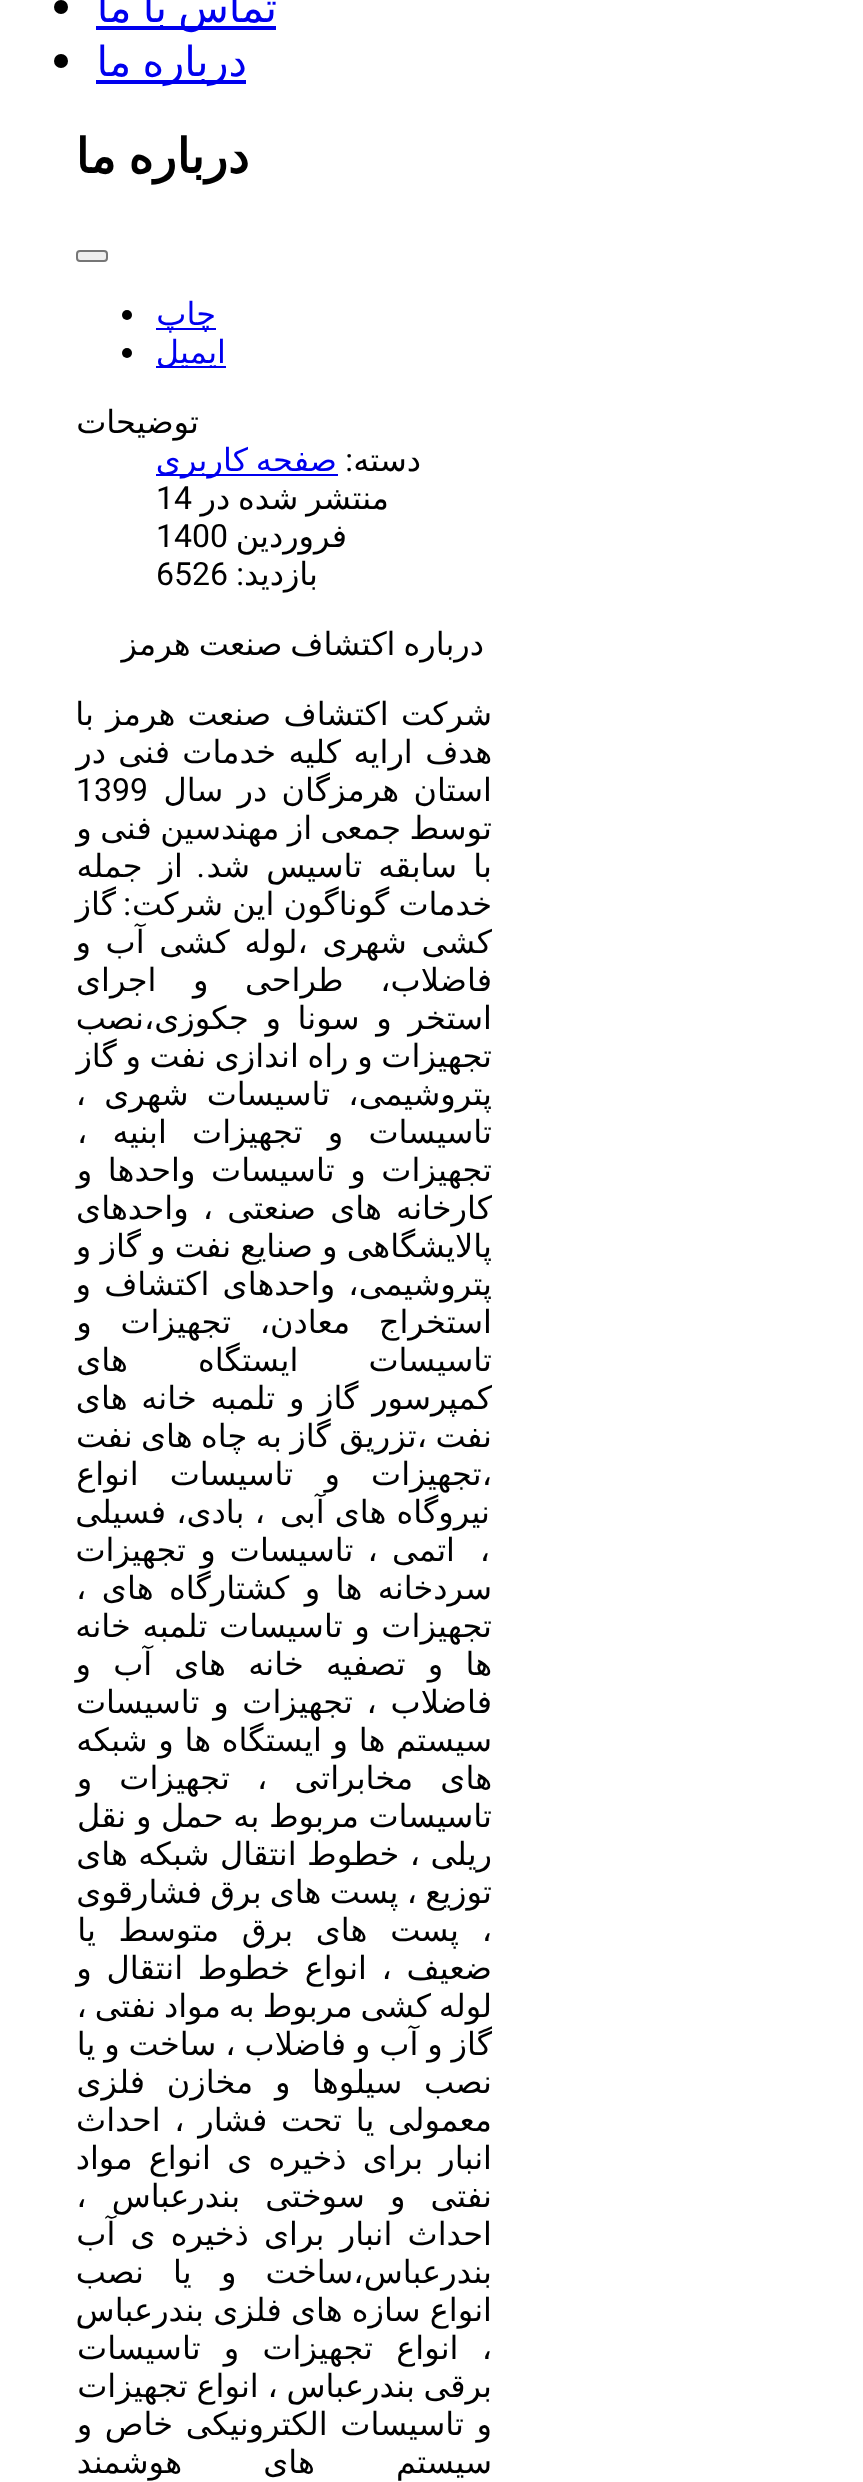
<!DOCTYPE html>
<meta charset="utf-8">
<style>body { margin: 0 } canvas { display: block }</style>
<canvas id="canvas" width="863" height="2482"></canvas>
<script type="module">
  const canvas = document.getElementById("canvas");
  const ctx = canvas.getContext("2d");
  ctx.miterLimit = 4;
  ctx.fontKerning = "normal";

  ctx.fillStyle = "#ffffff";
  ctx.fillRect(0, 0, 863, 2482);
  ctx.fillStyle = "#0000ee";
  ctx.fillRect(96, 26, 180, 4);
  ctx.wordSpacing = "-2px";
  ctx.direction = "rtl";
  ctx.font = "41.5px DejaVu Sans";
  ctx.fillText("تماس با ما", 277, 22);
  ctx.fillStyle = "#000000";
  ctx.beginPath();
  ctx.arc(61, 7, 7, 0, Math.PI * 2);
  ctx.fill();
  ctx.fillStyle = "#0000ee";
  ctx.fillRect(96, 80, 150, 4);
  ctx.fillText("درباره ما", 247, 76);
  ctx.fillStyle = "#000000";
  ctx.beginPath();
  ctx.arc(61, 61, 7, 0, Math.PI * 2);
  ctx.fill();
  ctx.wordSpacing = "-3px";
  ctx.font = "bold 48px DejaVu Sans";
  ctx.fillText("درباره ما", 249, 173);
  ctx.fillStyle = "#efefef";
  ctx.beginPath();
  ctx.roundRect(77, 251, 30, 10, 3);
  ctx.fill();
  ctx.strokeStyle = "#767676";
  ctx.lineWidth = 2;
  ctx.stroke();
  ctx.fillStyle = "#0000ee";
  ctx.fillRect(156, 328, 60, 2);
  ctx.wordSpacing = "0px";
  ctx.font = "32px DejaVu Sans";
  ctx.fillText("چاپ", 216, 325);
  ctx.fillStyle = "#000000";
  ctx.beginPath();
  ctx.arc(127, 315, 5, 0, Math.PI * 2);
  ctx.fill();
  ctx.fillStyle = "#0000ee";
  ctx.fillRect(156, 366, 70, 2);
  ctx.fillText("ایمیل", 226, 363);
  ctx.fillStyle = "#000000";
  ctx.beginPath();
  ctx.arc(127, 353, 5, 0, Math.PI * 2);
  ctx.fill();
  ctx.fillText("توضیحات", 199, 433);
  ctx.fillText("دسته", 421, 471);
  ctx.font = "32px Roboto";
  ctx.fillText(":", 353, 471);
  ctx.fillStyle = "#0000ee";
  ctx.fillRect(156, 474, 182, 2);
  ctx.wordSpacing = "-2.25px";
  ctx.font = "32px DejaVu Sans";
  ctx.fillText("صفحه کاربری", 337, 471);
  ctx.fillStyle = "#000000";
  ctx.fillText("منتشر شده در", 389, 509);
  ctx.wordSpacing = "0px";
  ctx.direction = "ltr";
  ctx.font = "32px Roboto";
  ctx.fillText("14", 156, 509);
  ctx.direction = "rtl";
  ctx.font = "32px DejaVu Sans";
  ctx.fillText("فروردين", 347, 547);
  ctx.direction = "ltr";
  ctx.font = "32px Roboto";
  ctx.fillText("1400", 156, 547);
  ctx.direction = "rtl";
  ctx.font = "32px DejaVu Sans";
  ctx.fillText("بازدید", 318, 585);
  ctx.font = "32px Roboto";
  ctx.fillText(":", 244, 585);
  ctx.direction = "ltr";
  ctx.fillText("6526", 156, 585);
  ctx.wordSpacing = "-2.25px";
  ctx.direction = "rtl";
  ctx.font = "32px DejaVu Sans";
  ctx.fillText("درباره اکتشاف صنعت هرمز", 484, 655);
  ctx.wordSpacing = "2px";
  ctx.fillText("شرکت اکتشاف صنعت هرمز با", 492, 725);
  ctx.wordSpacing = "2.25px";
  ctx.fillText("هدف ارایه کلیه خدمات فنی در", 492, 763);
  ctx.wordSpacing = "4px";
  ctx.fillText("استان هرمزگان در سال", 492, 801);
  ctx.wordSpacing = "0px";
  ctx.direction = "ltr";
  ctx.font = "32px Roboto";
  ctx.fillText("1399", 76, 801);
  ctx.wordSpacing = "-1.75px";
  ctx.direction = "rtl";
  ctx.font = "32px DejaVu Sans";
  ctx.fillText("توسط جمعی از مهندسین فنی و", 492, 839);
  ctx.wordSpacing = "6px";
  ctx.fillText("با سابقه تاسیس شد", 492, 877);
  ctx.wordSpacing = "0px";
  ctx.font = "32px Roboto";
  ctx.fillText(".", 205, 877);
  ctx.wordSpacing = "6px";
  ctx.font = "32px DejaVu Sans";
  ctx.fillText("از جمله", 183, 877);
  ctx.wordSpacing = "-1px";
  ctx.fillText("خدمات گوناگون این شرکت", 492, 915);
  ctx.wordSpacing = "0px";
  ctx.font = "32px Roboto";
  ctx.fillText(":", 131, 915);
  ctx.font = "32px DejaVu Sans";
  ctx.fillText("گاز", 116, 915);
  ctx.wordSpacing = "4.5px";
  ctx.fillText("کشی شهری ،لوله کشی آب و", 492, 953);
  ctx.wordSpacing = "26.5px";
  ctx.fillText("فاضلاب، طراحی و اجرای", 492, 991);
  ctx.wordSpacing = "6.5px";
  ctx.fillText("استخر و سونا و جکوزی،نصب", 492, 1029);
  ctx.wordSpacing = "-1.5px";
  ctx.fillText("تجهیزات و راه اندازی نفت و گاز", 492, 1067);
  ctx.wordSpacing = "8px";
  ctx.fillText("پتروشیمی، تاسیسات شهری ،", 492, 1105);
  ctx.wordSpacing = "15px";
  ctx.fillText("تاسیسات و تجهیزات ابنیه ،", 492, 1143);
  ctx.wordSpacing = "5.5px";
  ctx.fillText("تجهیزات و تاسیسات واحدها و", 492, 1181);
  ctx.wordSpacing = "4px";
  ctx.fillText("کارخانه های صنعتی ، واحدهای", 492, 1219);
  ctx.wordSpacing = "-1px";
  ctx.fillText("پالایشگاهی و صنایع نفت و گاز و", 492, 1257);
  ctx.wordSpacing = "3px";
  ctx.fillText("پتروشیمی، واحدهای اکتشاف و", 492, 1295);
  ctx.wordSpacing = "18.5px";
  ctx.fillText("استخراج معادن، تجهیزات و", 492, 1333);
  ctx.wordSpacing = "60px";
  ctx.fillText("تاسیسات ایستگاه های", 492, 1371);
  ctx.wordSpacing = "3.5px";
  ctx.fillText("کمپرسور گاز و تلمبه خانه های", 492, 1409);
  ctx.wordSpacing = "-1.75px";
  ctx.fillText("نفت ،تزریق گاز به چاه های نفت", 492, 1447);
  ctx.wordSpacing = "21px";
  ctx.fillText("،تجهیزات و تاسیسات انواع", 492, 1485);
  ctx.wordSpacing = "0px";
  ctx.fillText("نیروگاه های آبی", 490, 1523);
  ctx.fillText("، بادی، فسیلی", 265, 1523);
  ctx.fillText("،", 490, 1561);
  ctx.wordSpacing = "4px";
  ctx.fillText("اتمی ، تاسیسات و تجهیزات", 455, 1561);
  ctx.wordSpacing = "5.25px";
  ctx.fillText("سردخانه ها و کشتارگاه های ،", 492, 1599);
  ctx.wordSpacing = "1.5px";
  ctx.fillText("تجهیزات و تاسیسات تلمبه خانه", 492, 1637);
  ctx.wordSpacing = "12px";
  ctx.fillText("ها و تصفیه خانه های آب و", 492, 1675);
  ctx.wordSpacing = "3.5px";
  ctx.fillText("فاضلاب ، تجهیزات و تاسیسات", 492, 1713);
  ctx.wordSpacing = "0.5px";
  ctx.fillText("سیستم ها و ایستگاه ها و شبکه", 492, 1751);
  ctx.wordSpacing = "17px";
  ctx.fillText("های مخابراتی ، تجهیزات و", 492, 1789);
  ctx.wordSpacing = "-0.5px";
  ctx.fillText("تاسیسات مربوط به حمل و نقل", 492, 1827);
  ctx.wordSpacing = "0.25px";
  ctx.fillText("ریلی ، خطوط انتقال شبکه های", 492, 1865);
  ctx.wordSpacing = "-2px";
  ctx.fillText("توزیع ، پست های برق فشارقوی", 492, 1903);
  ctx.wordSpacing = "12.5px";
  ctx.fillText("، پست های برق متوسط یا", 492, 1941);
  ctx.wordSpacing = "4.5px";
  ctx.fillText("ضعیف ، انواع خطوط انتقال و", 492, 1979);
  ctx.wordSpacing = "-2.25px";
  ctx.fillText("لوله کشی مربوط به مواد نفتی ،", 492, 2017);
  ctx.wordSpacing = "-1.25px";
  ctx.fillText("گاز و آب و فاضلاب ، ساخت و یا", 492, 2055);
  ctx.wordSpacing = "11.5px";
  ctx.fillText("نصب سیلوها و مخازن فلزی", 492, 2093);
  ctx.wordSpacing = "3.5px";
  ctx.fillText("معمولی یا تحت فشار ، احداث", 492, 2131);
  ctx.wordSpacing = "6px";
  ctx.fillText("انبار برای ذخیره ی انواع مواد", 492, 2169);
  ctx.wordSpacing = "15px";
  ctx.fillText("نفتی و سوختی بندرعباس ،", 492, 2207);
  ctx.wordSpacing = "5px";
  ctx.fillText("احداث انبار برای ذخیره ی آب", 492, 2245);
  ctx.wordSpacing = "19px";
  ctx.fillText("بندرعباس،ساخت و یا نصب", 492, 2283);
  ctx.wordSpacing = "-1px";
  ctx.fillText("انواع سازه های فلزی بندرعباس", 492, 2321);
  ctx.wordSpacing = "13px";
  ctx.fillText("، انواع تجهیزات و تاسیسات", 492, 2359);
  ctx.wordSpacing = "-1.5px";
  ctx.fillText("برقی بندرعباس ، انواع تجهیزات", 492, 2397);
  ctx.wordSpacing = "2.5px";
  ctx.fillText("و تاسیسات الکترونیکی خاص و", 492, 2435);
  ctx.wordSpacing = "71px";
  ctx.fillText("سیستم های هوشمند", 492, 2473);
</script>
